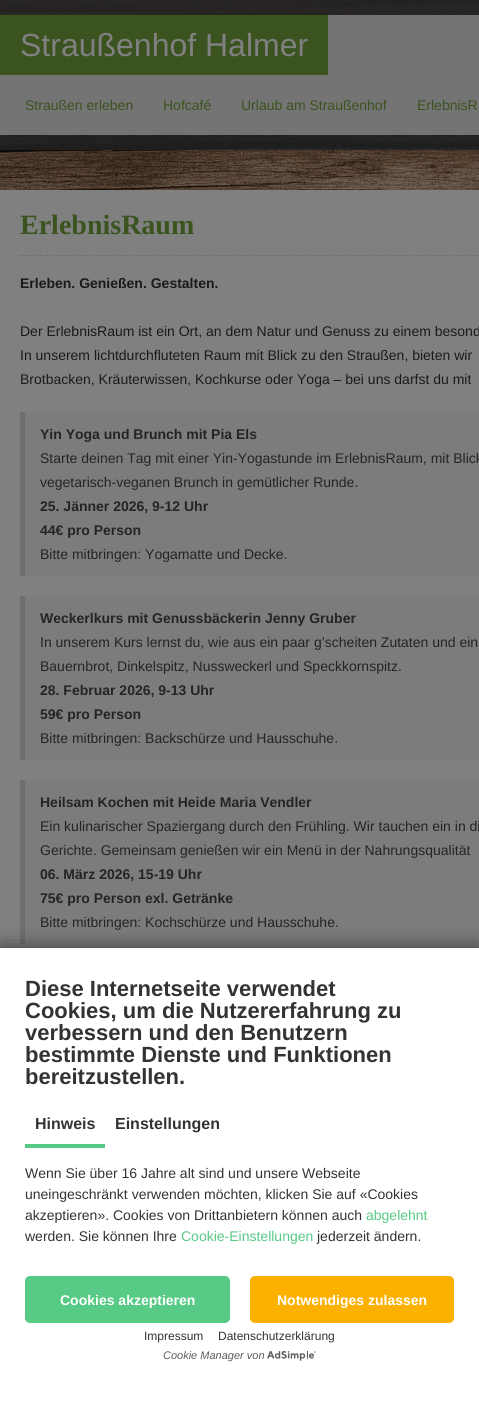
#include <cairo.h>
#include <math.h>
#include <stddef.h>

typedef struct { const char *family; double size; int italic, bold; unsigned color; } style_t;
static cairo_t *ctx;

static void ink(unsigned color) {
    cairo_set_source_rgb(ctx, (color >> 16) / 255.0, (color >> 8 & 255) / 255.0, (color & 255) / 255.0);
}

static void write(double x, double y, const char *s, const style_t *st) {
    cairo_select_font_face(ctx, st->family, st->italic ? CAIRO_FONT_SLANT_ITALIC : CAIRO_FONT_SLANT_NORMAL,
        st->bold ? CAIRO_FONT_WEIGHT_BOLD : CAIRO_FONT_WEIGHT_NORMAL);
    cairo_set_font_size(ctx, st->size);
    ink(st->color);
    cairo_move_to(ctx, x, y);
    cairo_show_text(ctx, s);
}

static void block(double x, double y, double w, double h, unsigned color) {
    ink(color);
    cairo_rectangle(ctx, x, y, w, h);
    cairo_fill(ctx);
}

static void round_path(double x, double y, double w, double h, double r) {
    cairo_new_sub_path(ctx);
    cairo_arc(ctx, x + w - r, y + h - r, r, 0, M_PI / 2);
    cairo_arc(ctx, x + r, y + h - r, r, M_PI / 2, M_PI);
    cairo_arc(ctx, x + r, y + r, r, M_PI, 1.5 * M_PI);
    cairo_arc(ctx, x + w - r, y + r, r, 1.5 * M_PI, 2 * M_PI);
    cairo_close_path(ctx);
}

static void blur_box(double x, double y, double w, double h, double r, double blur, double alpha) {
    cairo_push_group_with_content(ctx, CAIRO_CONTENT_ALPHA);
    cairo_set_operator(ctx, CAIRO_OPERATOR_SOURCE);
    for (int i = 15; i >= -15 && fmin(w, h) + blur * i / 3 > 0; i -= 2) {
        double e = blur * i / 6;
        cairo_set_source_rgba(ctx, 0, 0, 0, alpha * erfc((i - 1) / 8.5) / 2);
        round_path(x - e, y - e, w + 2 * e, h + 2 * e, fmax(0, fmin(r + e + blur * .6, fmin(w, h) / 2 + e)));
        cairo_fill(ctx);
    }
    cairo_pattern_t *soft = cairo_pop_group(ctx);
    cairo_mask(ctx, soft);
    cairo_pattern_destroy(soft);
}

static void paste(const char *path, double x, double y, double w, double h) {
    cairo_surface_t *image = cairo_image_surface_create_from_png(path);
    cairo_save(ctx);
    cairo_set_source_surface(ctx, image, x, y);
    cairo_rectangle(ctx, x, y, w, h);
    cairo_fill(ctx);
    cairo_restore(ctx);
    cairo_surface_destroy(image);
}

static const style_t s1 = {"Liberation Sans", 32, 0, 0, 0x808080};
static const style_t s2 = {"Liberation Sans", 14, 0, 0, 0x3a531f};
static const style_t s3 = {"Liberation Serif", 28, 0, 1, 0x3a531f};
static const style_t s4 = {"Liberation Sans", 14, 0, 1, 0x1a1a1a};
static const style_t s5 = {"Liberation Sans", 14, 0, 0, 0x1a1a1a};
static const style_t s6 = {"Liberation Sans", 14, 0, 1, 0x242424};
static const style_t s7 = {"Liberation Sans", 14, 0, 0, 0x242424};
static const style_t s8 = {"Liberation Sans", 22, 0, 1, 0x333333};
static const style_t s9 = {"Liberation Sans", 16, 0, 1, 0x333333};
static const style_t s10 = {"Liberation Sans", 14, 0, 0, 0x333333};
static const style_t s11 = {"Liberation Sans", 14, 0, 0, 0x57ca85};
static const style_t s12 = {"Liberation Sans", 14, 0, 1, 0xffffff};
static const style_t s13 = {"Liberation Sans", 12, 0, 0, 0x333333};
static const style_t s14 = {"Liberation Sans", 11, 1, 0, 0x5c5c5c};

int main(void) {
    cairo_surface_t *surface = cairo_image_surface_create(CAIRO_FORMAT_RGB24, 479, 1401);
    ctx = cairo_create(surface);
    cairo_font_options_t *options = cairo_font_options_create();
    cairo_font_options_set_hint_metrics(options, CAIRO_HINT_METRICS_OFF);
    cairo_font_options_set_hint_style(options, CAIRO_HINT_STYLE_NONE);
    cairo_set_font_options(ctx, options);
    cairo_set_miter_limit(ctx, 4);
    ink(0xffffff);
    cairo_paint(ctx);
    paste("pic1.png", 0, 0, 479, 190);
    cairo_set_source_rgba(ctx, 0.133, 0.133, 0.133, 0.88);
    cairo_rectangle(ctx, 0, 0, 479, 150);
    cairo_fill(ctx);
    block(0, 15, 479, 120, 0x747474);
    block(0, 15, 328, 60, 0x3a531f);
    write(20, 56, "Straußenhof Halmer", &s1);
    write(25, 110, "Straußen erleben", &s2);
    write(163, 110, "Hofcafé", &s2);
    write(241, 110, "Urlaub am Straußenhof", &s2);
    write(417, 110, "ErlebnisR", &s2);
    block(0, 190, 479, 758, 0x808080);
    cairo_new_path(ctx);
    cairo_move_to(ctx, 20, 255.5);
    cairo_line_to(ctx, 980, 255.5);
    ink(0x6f6f6f);
    cairo_set_line_width(ctx, 1);
    cairo_set_dash(ctx, (double[]){3, 2.01}, 2, 0);
    cairo_stroke(ctx);
    write(20, 234, "ErlebnisRaum", &s3);
    write(20, 288, "Erleben. Genießen. Gestalten.", &s4);
    write(20, 336, "Der ErlebnisRaum ist ein Ort, an dem Natur und Genuss zu einem besond", &s5);
    write(20, 360, "In unserem lichtdurchfluteten Raum mit Blick zu den Straußen, bieten wir", &s5);
    write(20, 384, "Brotbacken, Kräuterwissen, Kochkurse oder Yoga – bei uns darfst du mit", &s5);
    block(25, 412, 454, 164, 0x7c7c7c);
    block(20, 412, 5, 164, 0x6f6f6f);
    write(40, 439, "Yin Yoga und Brunch mit Pia Els", &s6);
    write(40, 463, "Starte deinen Tag mit einer Yin-Yogastunde im ErlebnisRaum, mit Blick", &s7);
    write(40, 487, "vegetarisch-veganen Brunch in gemütlicher Runde.", &s7);
    write(40, 511, "25. Jänner 2026, 9-12 Uhr", &s6);
    write(40, 535, "44€ pro Person", &s6);
    write(40, 559, "Bitte mitbringen: Yogamatte und Decke.", &s7);
    block(25, 596, 454, 164, 0x7c7c7c);
    block(20, 596, 5, 164, 0x6f6f6f);
    write(40, 623, "Weckerlkurs mit Genussbäckerin Jenny Gruber", &s6);
    write(40, 647, "In unserem Kurs lernst du, wie aus ein paar g’scheiten Zutaten und ein", &s7);
    write(40, 671, "Bauernbrot, Dinkelspitz, Nussweckerl und Speckkornspitz.", &s7);
    write(40, 695, "28. Februar 2026, 9-13 Uhr", &s6);
    write(40, 719, "59€ pro Person", &s6);
    write(40, 743, "Bitte mitbringen: Backschürze und Hausschuhe.", &s7);
    block(25, 780, 454, 164, 0x7c7c7c);
    block(20, 780, 5, 164, 0x6f6f6f);
    write(40, 807, "Heilsam Kochen mit Heide Maria Vendler", &s6);
    write(40, 831, "Ein kulinarischer Spaziergang durch den Frühling. Wir tauchen ein in di", &s7);
    write(40, 855, "Gerichte. Gemeinsam genießen wir ein Menü in der Nahrungsqualität", &s7);
    write(40, 879, "06. März 2026, 15-19 Uhr", &s6);
    write(40, 903, "75€ pro Person exl. Getränke", &s6);
    write(40, 927, "Bitte mitbringen: Kochschürze und Hausschuhe.", &s7);
    ink(0x000000);
    blur_box(0, 948, 479, 453, 0, 10, 0.6);
    block(0, 948, 479, 453, 0xffffff);
    write(25, 996, "Diese Internetseite verwendet", &s8);
    write(25, 1018, "Cookies, um die Nutzererfahrung zu", &s8);
    write(25, 1040, "verbessern und den Benutzern", &s8);
    write(25, 1062, "bestimmte Dienste und Funktionen", &s8);
    write(25, 1084, "bereitzustellen.", &s8);
    block(25, 1144, 80, 4, 0x57ca85);
    write(35, 1129, "Hinweis", &s9);
    write(115, 1129, "Einstellungen", &s9);
    write(25, 1178, "Wenn Sie über 16 Jahre alt sind und unsere Webseite", &s10);
    write(25, 1199, "uneingeschränkt verwenden möchten, klicken Sie auf «Cookies", &s10);
    write(25, 1220, "akzeptieren». Cookies von Drittanbietern können auch", &s10);
    write(366, 1220, "abgelehnt", &s11);
    write(25, 1241, "werden. Sie können Ihre", &s10);
    write(181, 1241, "Cookie-Einstellungen", &s11);
    write(317, 1241, "jederzeit ändern.", &s10);
    ink(0x57ca85);
    round_path(26, 1277, 203, 45, 4);
    cairo_fill_preserve(ctx);
    cairo_set_line_width(ctx, 2);
    cairo_set_dash(ctx, NULL, 0, 0);
    cairo_stroke(ctx);
    write(60, 1305, "Cookies akzeptieren", &s12);
    ink(0xfcb100);
    round_path(251, 1277, 202, 45, 4);
    cairo_fill_preserve(ctx);
    cairo_stroke(ctx);
    write(277, 1305, "Notwendiges zulassen", &s12);
    write(144, 1340, "Impressum", &s13);
    write(218, 1340, "Datenschutzerklärung", &s13);
    write(163, 1359, "Cookie Manager von", &s14);
    paste("pic2.png", 267, 1351, 49, 10);
    cairo_surface_write_to_png(surface, "screenshot.png");
    cairo_font_options_destroy(options);
    cairo_destroy(ctx);
    cairo_surface_destroy(surface);
    return 0;
}
